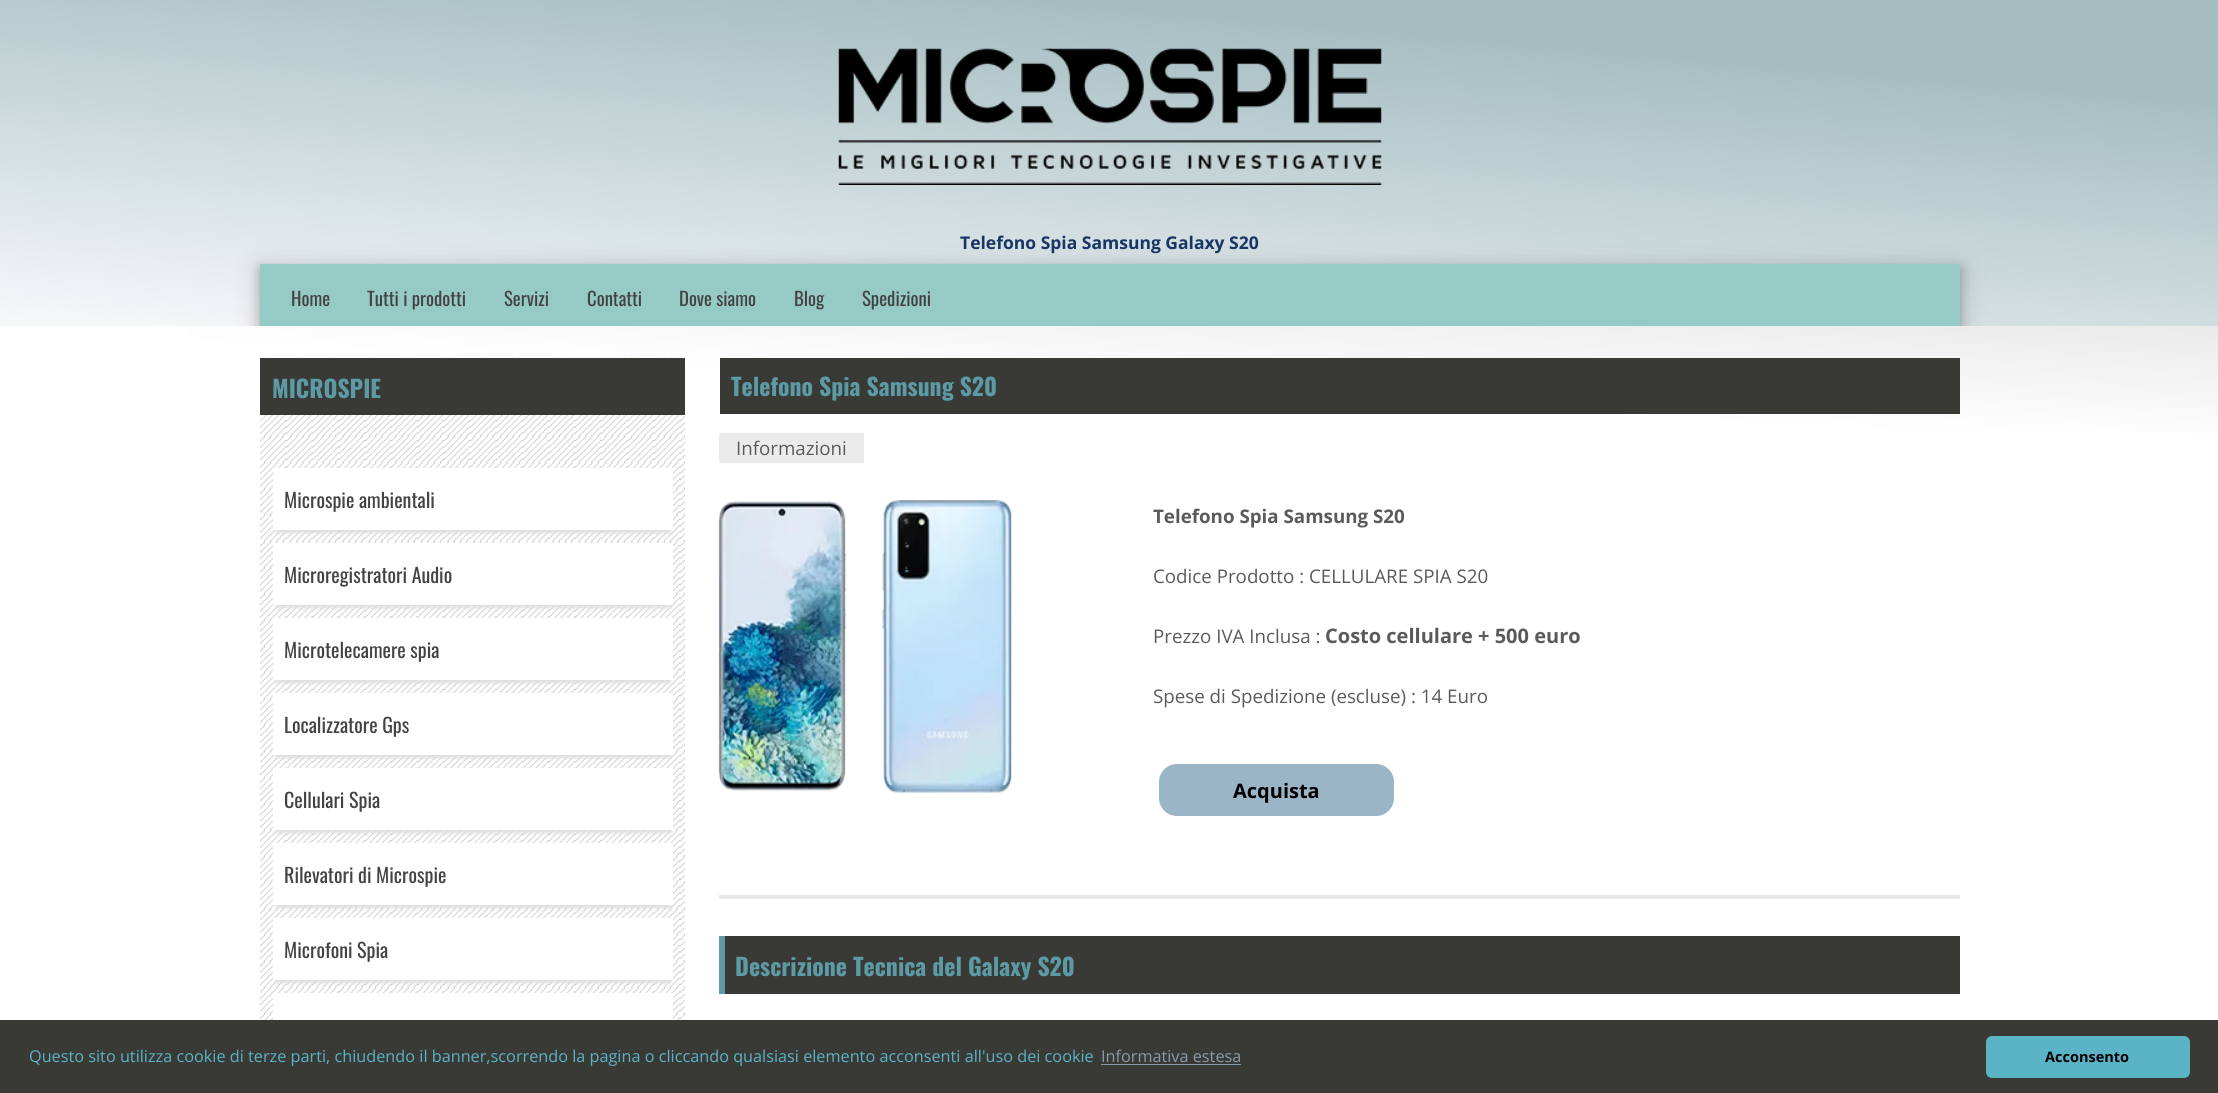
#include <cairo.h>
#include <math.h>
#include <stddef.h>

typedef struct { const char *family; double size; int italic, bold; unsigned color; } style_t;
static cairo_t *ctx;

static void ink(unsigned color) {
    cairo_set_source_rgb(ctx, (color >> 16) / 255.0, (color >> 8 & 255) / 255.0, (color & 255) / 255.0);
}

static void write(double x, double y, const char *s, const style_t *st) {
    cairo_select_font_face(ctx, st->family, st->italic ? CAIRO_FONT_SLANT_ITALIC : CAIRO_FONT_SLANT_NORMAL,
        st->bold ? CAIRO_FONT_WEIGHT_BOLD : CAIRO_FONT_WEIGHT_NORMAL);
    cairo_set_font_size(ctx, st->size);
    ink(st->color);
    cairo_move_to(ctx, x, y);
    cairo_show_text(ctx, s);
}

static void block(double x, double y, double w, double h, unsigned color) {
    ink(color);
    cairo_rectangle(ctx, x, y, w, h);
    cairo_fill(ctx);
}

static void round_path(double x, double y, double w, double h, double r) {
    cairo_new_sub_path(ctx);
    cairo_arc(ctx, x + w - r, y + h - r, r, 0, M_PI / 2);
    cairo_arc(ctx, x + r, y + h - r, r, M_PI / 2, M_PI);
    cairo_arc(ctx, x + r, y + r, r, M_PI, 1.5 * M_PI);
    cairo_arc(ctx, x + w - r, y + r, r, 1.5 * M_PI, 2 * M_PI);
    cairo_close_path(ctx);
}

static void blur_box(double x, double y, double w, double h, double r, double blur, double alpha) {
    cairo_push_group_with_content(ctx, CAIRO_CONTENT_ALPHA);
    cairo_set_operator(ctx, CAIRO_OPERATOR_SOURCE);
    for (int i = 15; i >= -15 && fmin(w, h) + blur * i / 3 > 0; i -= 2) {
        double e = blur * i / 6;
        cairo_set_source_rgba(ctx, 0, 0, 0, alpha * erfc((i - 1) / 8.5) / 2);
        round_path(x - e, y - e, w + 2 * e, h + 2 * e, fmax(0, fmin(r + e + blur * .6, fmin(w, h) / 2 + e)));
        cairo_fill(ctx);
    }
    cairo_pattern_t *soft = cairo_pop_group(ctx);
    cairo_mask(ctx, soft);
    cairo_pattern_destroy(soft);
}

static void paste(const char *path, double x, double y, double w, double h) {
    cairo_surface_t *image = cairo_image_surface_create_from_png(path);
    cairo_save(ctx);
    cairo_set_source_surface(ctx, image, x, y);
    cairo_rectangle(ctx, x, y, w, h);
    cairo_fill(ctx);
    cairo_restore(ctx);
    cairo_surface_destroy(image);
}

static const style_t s1 = {"Open Sans", 17.5, 0, 1, 0x183565};
static const style_t s2 = {"Oswald", 18.75, 0, 0, 0x434343};
static const style_t s3 = {"Oswald", 23.75, 0, 1, 0x5c9ba5};
static const style_t s4 = {"Oswald", 20, 0, 0, 0x434343};
static const style_t s5 = {"Open Sans", 18.75, 0, 0, 0x5a5a5a};
static const style_t s6 = {"Open Sans", 18.75, 0, 1, 0x5a5a5a};
static const style_t s7 = {"Open Sans", 20, 0, 1, 0x5a5a5a};
static const style_t s8 = {"Open Sans", 20, 0, 1, 0x000000};
static const style_t s9 = {"Open Sans", 16.25, 0, 0, 0x5ab4c5};
static const style_t s10 = {"Open Sans", 16.25, 0, 0, 0x879ca8};
static const style_t s11 = {"Open Sans", 14.5, 0, 1, 0x000000};

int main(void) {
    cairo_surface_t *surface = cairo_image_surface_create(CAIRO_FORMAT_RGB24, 2218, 1093);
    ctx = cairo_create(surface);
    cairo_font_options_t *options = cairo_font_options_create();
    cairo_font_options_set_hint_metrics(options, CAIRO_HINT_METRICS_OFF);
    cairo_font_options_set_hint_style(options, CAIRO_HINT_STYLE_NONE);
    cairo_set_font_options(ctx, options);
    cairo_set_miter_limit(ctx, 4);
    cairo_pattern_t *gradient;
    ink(0xffffff);
    cairo_paint(ctx);
    gradient = cairo_pattern_create_linear(1087, 421, 1132, -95);
    cairo_pattern_add_color_stop_rgba(gradient, 0, 0.969, 0.973, 0.98, 1);
    cairo_pattern_add_color_stop_rgba(gradient, 0.8, 0.651, 0.745, 0.761, 1);
    cairo_set_source(ctx, gradient);
    cairo_pattern_destroy(gradient);
    cairo_rectangle(ctx, 0, 0, 2218, 326);
    cairo_fill(ctx);
    paste("pic1.png", 838, 48, 544, 137);
    ink(0x000000);
    blur_box(260, 269, 1700, 62, 0, 12.5, 0.19);
    blur_box(260, 269, 1700, 62, 0, 6, 0.2);
    write(960, 249, "Telefono Spia Samsung Galaxy S20", &s1);
    block(260, 264, 1700, 62, 0x96cac5);
    write(291, 306, "Home", &s2);
    write(367, 306, "Tutti i prodotti", &s2);
    write(504, 306, "Servizi", &s2);
    write(587, 306, "Contatti", &s2);
    write(679, 306, "Dove siamo", &s2);
    write(794, 306, "Blog", &s2);
    write(862, 306, "Spedizioni", &s2);
    gradient = cairo_pattern_create_linear(1045, 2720, 1174, 271);
    cairo_pattern_add_color_stop_rgba(gradient, 0, 1, 1, 1, 1);
    cairo_pattern_add_color_stop_rgba(gradient, 0.95, 1, 1, 1, 1);
    cairo_pattern_add_color_stop_rgba(gradient, 0.96, 0.984, 0.984, 0.984, 1);
    cairo_pattern_add_color_stop_rgba(gradient, 1, 0.918, 0.918, 0.918, 1);
    cairo_set_source(ctx, gradient);
    cairo_pattern_destroy(gradient);
    cairo_rectangle(ctx, 189, 326, 2029, 107);
    cairo_fill(ctx);
    paste("pic2.png", 260, 357, 425, 663);
    block(260, 358, 425, 57, 0x393936);
    write(272, 398, "MICROSPIE", &s3);
    ink(0xdddddd);
    blur_box(276, 475, 395, 58, 0, 2, 1);
    block(273, 468, 400, 62, 0xffffff);
    write(284, 508, "Microspie ambientali", &s4);
    ink(0xdddddd);
    blur_box(276, 550, 395, 58, 0, 2, 1);
    block(273, 543, 400, 62, 0xffffff);
    write(284, 583, "Microregistratori Audio", &s4);
    ink(0xdddddd);
    blur_box(276, 625, 395, 58, 0, 2, 1);
    block(273, 618, 400, 62, 0xffffff);
    write(284, 658, "Microtelecamere spia", &s4);
    ink(0xdddddd);
    blur_box(276, 700, 395, 58, 0, 2, 1);
    block(273, 693, 400, 62, 0xffffff);
    write(284, 733, "Localizzatore Gps", &s4);
    ink(0xdddddd);
    blur_box(276, 775, 395, 58, 0, 2, 1);
    block(273, 768, 400, 62, 0xffffff);
    write(284, 808, "Cellulari Spia", &s4);
    ink(0xdddddd);
    blur_box(276, 850, 395, 58, 0, 2, 1);
    block(273, 843, 400, 62, 0xffffff);
    write(284, 883, "Rilevatori di Microspie", &s4);
    ink(0xdddddd);
    blur_box(276, 925, 395, 58, 0, 2, 1);
    block(273, 918, 400, 62, 0xffffff);
    write(284, 958, "Microfoni Spia", &s4);
    ink(0xdddddd);
    blur_box(276, 1000, 395, 58, 0, 2, 1);
    block(273, 993, 400, 27, 0xffffff);
    block(720, 358, 1240, 56, 0x393936);
    write(731, 396, "Telefono Spia Samsung S20", &s3);
    block(719, 895, 1241, 4, 0xe7e7e7);
    block(719, 433, 145, 30, 0xecebeb);
    write(736, 455, "Informazioni", &s5);
    paste("pic3.png", 718, 500, 294, 293);
    write(1153, 523, "Telefono Spia Samsung S20", &s6);
    write(1153, 583, "Codice Prodotto : CELLULARE SPIA S20", &s5);
    write(1153, 643, "Prezzo IVA Inclusa :", &s5);
    write(1325, 643, "Costo cellulare + 500 euro", &s7);
    write(1153, 703, "Spese di Spedizione (escluse) : 14 Euro", &s5);
    ink(0x9ab5c5);
    round_path(1159, 764, 235, 52, 18);
    cairo_fill(ctx);
    write(1233, 798, "Acquista", &s8);
    block(725, 936, 1235, 58, 0x393936);
    block(719, 936, 6, 58, 0x5c9ba5);
    write(735, 976, "Descrizione Tecnica del Galaxy S20", &s3);
    block(0, 1020, 2218, 73, 0x393936);
    write(29, 1062, "Questo sito utilizza cookie di terze parti, chiudendo il banner,scorrendo la pagina o cliccando qualsiasi elemento acconsenti all'uso dei cookie", &s9);
    write(1101, 1062, "Informativa estesa", &s10);
    block(1101, 1064, 140, 1, 0x879ca8);
    ink(0x5ab4c5);
    round_path(1986, 1036, 204, 42, 6);
    cairo_fill(ctx);
    write(2045, 1062, "Acconsento", &s11);
    cairo_surface_write_to_png(surface, "screenshot.png");
    cairo_font_options_destroy(options);
    cairo_destroy(ctx);
    cairo_surface_destroy(surface);
    return 0;
}
